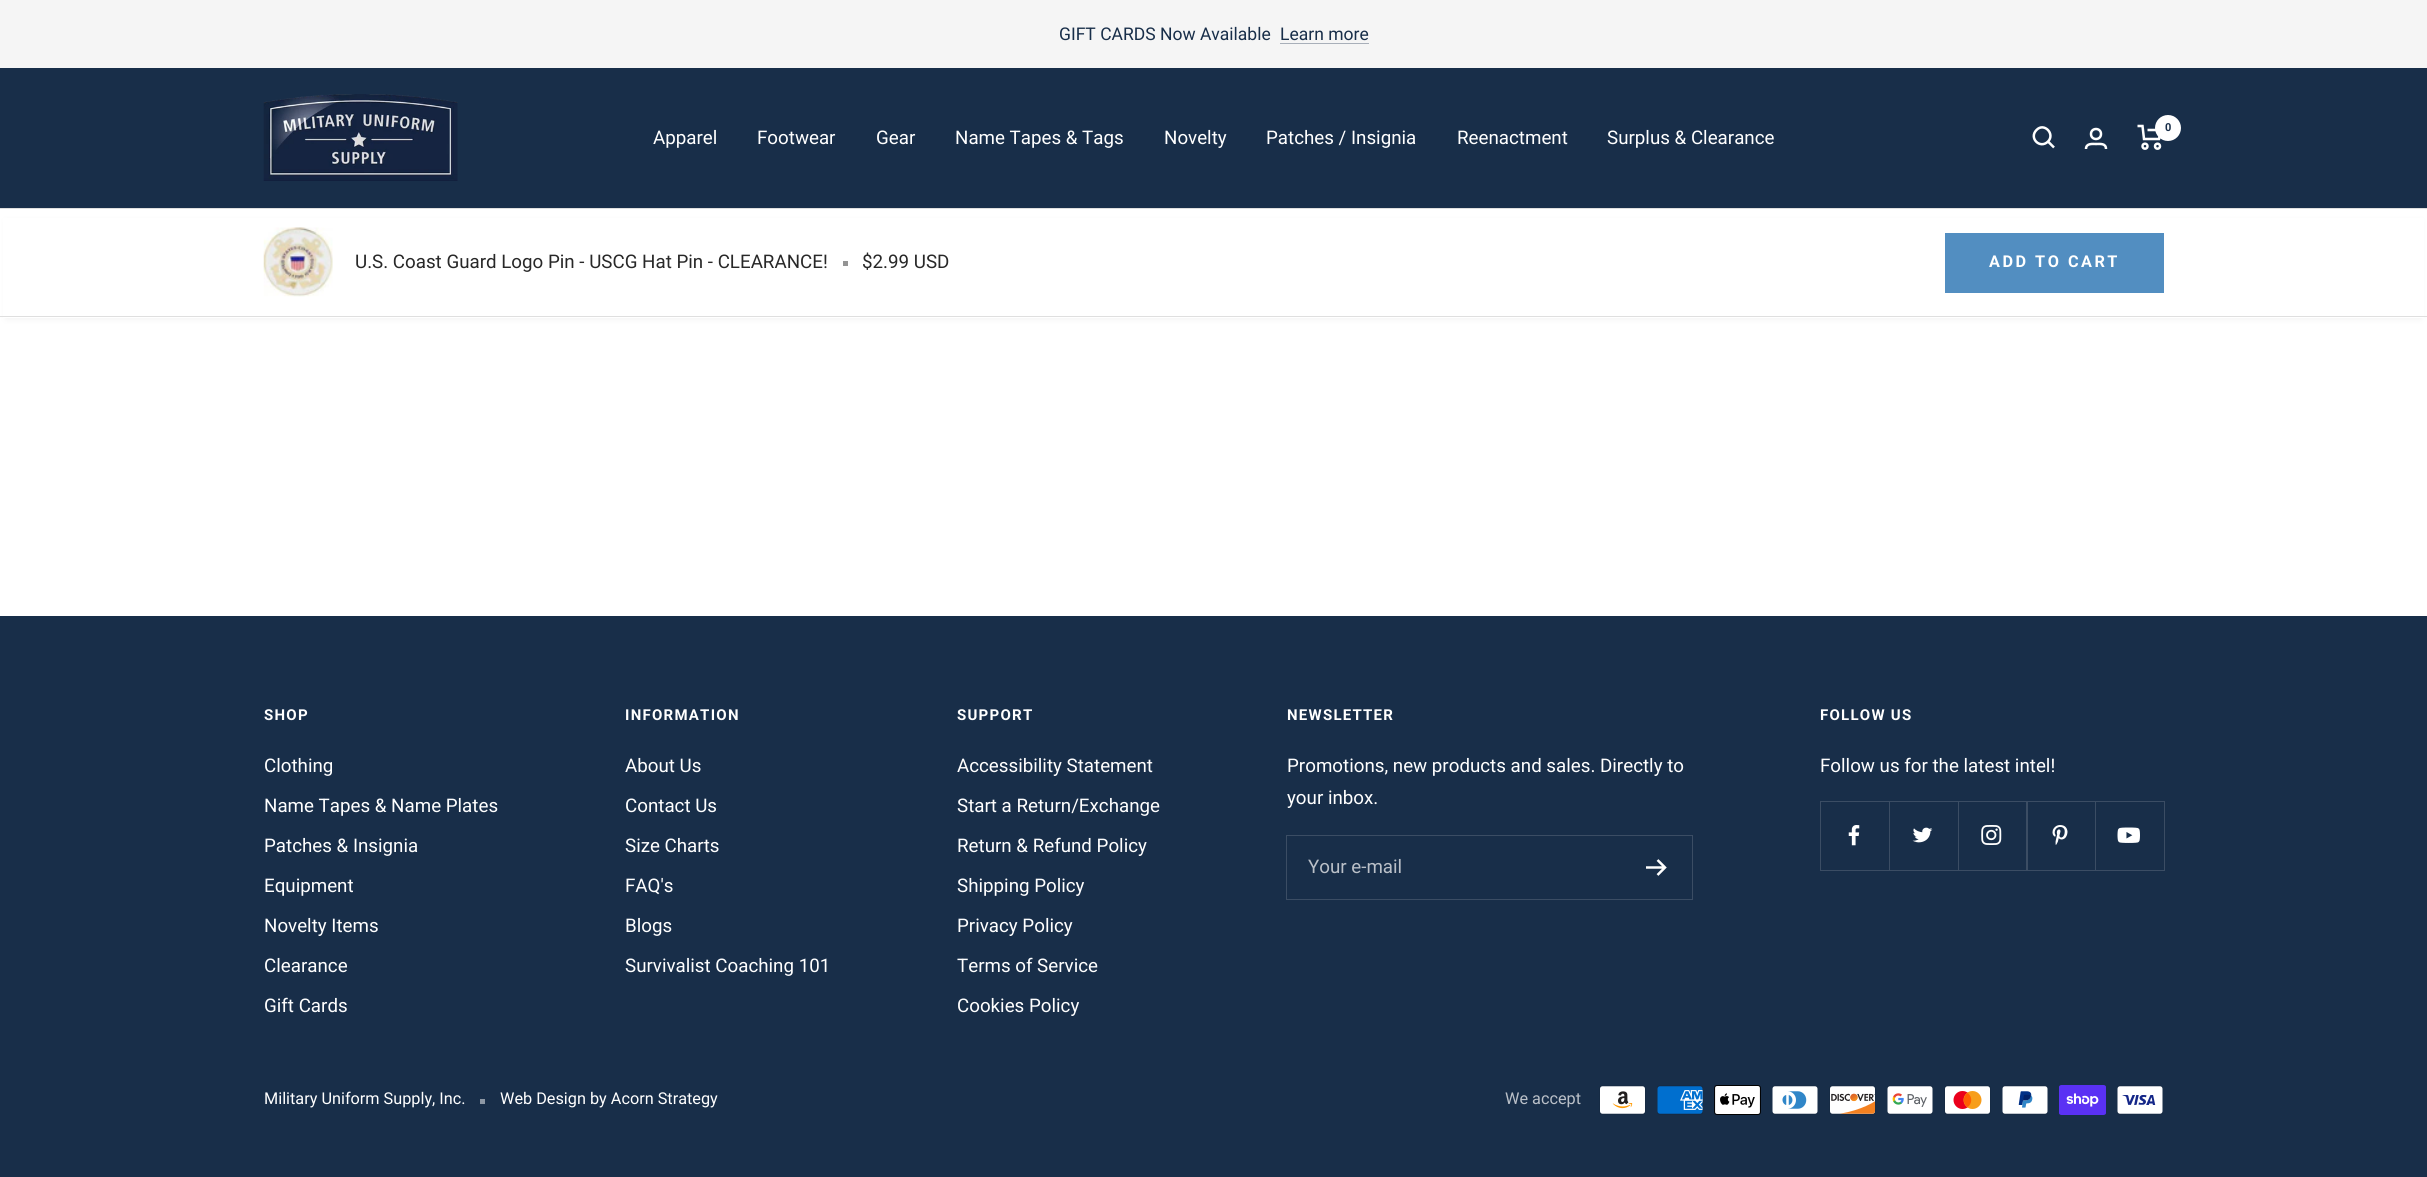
#include <cairo.h>
#include <math.h>
#include <stddef.h>

typedef struct { const char *family; double size; int italic, bold; unsigned color; } style_t;
static cairo_t *ctx;

static void ink(unsigned color) {
    cairo_set_source_rgb(ctx, (color >> 16) / 255.0, (color >> 8 & 255) / 255.0, (color & 255) / 255.0);
}

static void write(double x, double y, const char *s, const style_t *st) {
    cairo_select_font_face(ctx, st->family, st->italic ? CAIRO_FONT_SLANT_ITALIC : CAIRO_FONT_SLANT_NORMAL,
        st->bold ? CAIRO_FONT_WEIGHT_BOLD : CAIRO_FONT_WEIGHT_NORMAL);
    cairo_set_font_size(ctx, st->size);
    ink(st->color);
    cairo_move_to(ctx, x, y);
    cairo_show_text(ctx, s);
}

static void write_spaced(double x, double y, const char *s, double letter, double word) {
    cairo_move_to(ctx, x, y);
    while (*s) {
        char ch[5] = {0};
        int n = 0;
        do ch[n++] = *s++; while ((*s & 0xC0) == 0x80);
        cairo_show_text(ctx, ch);
        cairo_rel_move_to(ctx, letter + word * (*ch == ' '), 0);
    }
}

static void block(double x, double y, double w, double h, unsigned color) {
    ink(color);
    cairo_rectangle(ctx, x, y, w, h);
    cairo_fill(ctx);
}

static void round_path(double x, double y, double w, double h, double r) {
    cairo_new_sub_path(ctx);
    cairo_arc(ctx, x + w - r, y + h - r, r, 0, M_PI / 2);
    cairo_arc(ctx, x + r, y + h - r, r, M_PI / 2, M_PI);
    cairo_arc(ctx, x + r, y + r, r, M_PI, 1.5 * M_PI);
    cairo_arc(ctx, x + w - r, y + r, r, 1.5 * M_PI, 2 * M_PI);
    cairo_close_path(ctx);
}

static void blur_box(double x, double y, double w, double h, double r, double blur, double alpha) {
    cairo_push_group_with_content(ctx, CAIRO_CONTENT_ALPHA);
    cairo_set_operator(ctx, CAIRO_OPERATOR_SOURCE);
    for (int i = 15; i >= -15 && fmin(w, h) + blur * i / 3 > 0; i -= 2) {
        double e = blur * i / 6;
        cairo_set_source_rgba(ctx, 0, 0, 0, alpha * erfc((i - 1) / 8.5) / 2);
        round_path(x - e, y - e, w + 2 * e, h + 2 * e, fmax(0, fmin(r + e + blur * .6, fmin(w, h) / 2 + e)));
        cairo_fill(ctx);
    }
    cairo_pattern_t *soft = cairo_pop_group(ctx);
    cairo_mask(ctx, soft);
    cairo_pattern_destroy(soft);
}

static void paste(const char *path, double x, double y, double w, double h) {
    cairo_surface_t *image = cairo_image_surface_create_from_png(path);
    cairo_save(ctx);
    cairo_set_source_surface(ctx, image, x, y);
    cairo_rectangle(ctx, x, y, w, h);
    cairo_fill(ctx);
    cairo_restore(ctx);
    cairo_surface_destroy(image);
}

static const style_t s1 = {"Roboto", 17.5, 0, 0, 0x182e49};
static const style_t s2 = {"Roboto", 11, 0, 1, 0x182e49};
static const style_t s3 = {"Roboto", 18.75, 0, 0, 0xffffff};
static const style_t s4 = {"Roboto", 18.75, 0, 0, 0x282828};
static const style_t s5 = {"Roboto", 18.75, 0, 0, 0xbac0c8};
static const style_t s6 = {"Roboto", 16.25, 0, 0, 0xffffff};
static const style_t s7 = {"Roboto", 16.25, 0, 0, 0xbac0c8};

int main(void) {
    cairo_surface_t *surface = cairo_image_surface_create(CAIRO_FORMAT_RGB24, 2427, 1177);
    ctx = cairo_create(surface);
    cairo_font_options_t *options = cairo_font_options_create();
    cairo_font_options_set_hint_metrics(options, CAIRO_HINT_METRICS_OFF);
    cairo_font_options_set_hint_style(options, CAIRO_HINT_STYLE_NONE);
    cairo_set_font_options(ctx, options);
    cairo_set_miter_limit(ctx, 4);
    ink(0xffffff);
    cairo_paint(ctx);
    block(0, 0, 2427, 68, 0xf5f5f5);
    write(1059, 40, "GIFT CARDS Now Available", &s1);
    write(1280, 40, "Learn more", &s1);
    block(1280, 43, 89, 1, 0xa8afb9);
    block(0, 68, 2427, 140, 0x182e49);
    paste("pic1.png", 263, 94, 195, 87);
    cairo_new_path(ctx);
    cairo_move_to(ctx, 2048, 141.5);
    cairo_curve_to(ctx, 2055.5, 134, 2044, 122, 2036.5, 130);
    cairo_curve_to(ctx, 2028.5, 138, 2040, 149.5, 2048, 141.5);
    cairo_close_path(ctx);
    cairo_move_to(ctx, 2048, 141.5);
    cairo_line_to(ctx, 2054, 147.5);
    ink(0xffffff);
    cairo_set_line_width(ctx, 2.5);
    cairo_stroke(ctx);
    cairo_arc(ctx, 2096, 134, 5, 0, 2 * M_PI);
    cairo_stroke(ctx);
    cairo_new_path(ctx);
    cairo_move_to(ctx, 2086, 149);
    cairo_curve_to(ctx, 2086, 143, 2092.5, 144, 2096, 144);
    cairo_curve_to(ctx, 2100, 144, 2106, 143, 2106, 149);
    cairo_stroke(ctx);
    cairo_new_path(ctx);
    cairo_move_to(ctx, 2137.5, 126);
    cairo_line_to(ctx, 2142.5, 126);
    cairo_line_to(ctx, 2144, 139);
    cairo_line_to(ctx, 2159, 139);
    cairo_line_to(ctx, 2161, 130);
    cairo_line_to(ctx, 2147.5, 130);
    cairo_stroke(ctx);
    cairo_arc(ctx, 2145, 146.2, 2.5, 0, 2 * M_PI);
    cairo_stroke(ctx);
    cairo_arc(ctx, 2157.5, 146.2, 2.5, 0, 2 * M_PI);
    cairo_stroke(ctx);
    cairo_arc(ctx, 2168, 128, 13, 0, 2 * M_PI);
    cairo_fill(ctx);
    write(2165, 131, "0", &s2);
    write(653, 144, "Apparel", &s3);
    write(757, 144, "Footwear", &s3);
    write(876, 144, "Gear", &s3);
    write(955, 144, "Name Tapes & Tags", &s3);
    write(1164, 144, "Novelty", &s3);
    write(1266, 144, "Patches / Insignia", &s3);
    write(1457, 144, "Reenactment", &s3);
    write(1607, 144, "Surplus & Clearance", &s3);
    ink(0xdfdfdf);
    blur_box(6, 221, 2415, 98, 0, 3, 0.4);
    block(3, 218, 2421, 100, 0xffffff);
    block(0, 208, 2427, 1, 0xdfdfdf);
    block(0, 316, 2427, 1, 0xdfdfdf);
    paste("pic2.png", 263, 227, 70, 70);
    write(355, 268, "U.S. Coast Guard Logo Pin - USCG Hat Pin - CLEARANCE!", &s4);
    block(843, 261, 5, 5, 0x949494);
    write(862, 268, "$2.99 USD", &s4);
    block(1945, 233, 219, 60, 0x528ec1);
    cairo_select_font_face(ctx, "Roboto", CAIRO_FONT_SLANT_NORMAL, CAIRO_FONT_WEIGHT_BOLD);
    cairo_set_font_size(ctx, 16.25);
    ink(0xffffff);
    write_spaced(1989, 267, "ADD TO CART", 2.5, 0);
    block(0, 616, 2427, 561, 0x182e49);
    cairo_set_font_size(ctx, 15);
    ink(0xffffff);
    write_spaced(264, 720, "SHOP", 1.25, 0);
    write(264, 772, "Clothing", &s3);
    write(264, 812, "Name Tapes & Name Plates", &s3);
    write(264, 852, "Patches & Insignia", &s3);
    write(264, 892, "Equipment", &s3);
    write(264, 932, "Novelty Items", &s3);
    write(264, 972, "Clearance", &s3);
    write(264, 1012, "Gift Cards", &s3);
    cairo_select_font_face(ctx, "Roboto", CAIRO_FONT_SLANT_NORMAL, CAIRO_FONT_WEIGHT_BOLD);
    cairo_set_font_size(ctx, 15);
    write_spaced(625, 720, "INFORMATION", 1.25, 0);
    write(625, 772, "About Us", &s3);
    write(625, 812, "Contact Us", &s3);
    write(625, 852, "Size Charts", &s3);
    write(625, 892, "FAQ's", &s3);
    write(625, 932, "Blogs", &s3);
    write(625, 972, "Survivalist Coaching 101", &s3);
    cairo_select_font_face(ctx, "Roboto", CAIRO_FONT_SLANT_NORMAL, CAIRO_FONT_WEIGHT_BOLD);
    cairo_set_font_size(ctx, 15);
    write_spaced(957, 720, "SUPPORT", 1.25, 0);
    write(957, 772, "Accessibility Statement", &s3);
    write(957, 812, "Start a Return/Exchange", &s3);
    write(957, 852, "Return & Refund Policy", &s3);
    write(957, 892, "Shipping Policy", &s3);
    write(957, 932, "Privacy Policy", &s3);
    write(957, 972, "Terms of Service", &s3);
    write(957, 1012, "Cookies Policy", &s3);
    cairo_select_font_face(ctx, "Roboto", CAIRO_FONT_SLANT_NORMAL, CAIRO_FONT_WEIGHT_BOLD);
    cairo_set_font_size(ctx, 15);
    write_spaced(1287, 720, "NEWSLETTER", 1.25, 0);
    write(1287, 772, "Promotions, new products and sales. Directly to", &s3);
    write(1287, 804, "your inbox.", &s3);
    cairo_rectangle(ctx, 1286.5, 835.5, 406, 64);
    ink(0x3b4d64);
    cairo_set_line_width(ctx, 1);
    cairo_stroke(ctx);
    write(1308, 873, "Your e-mail", &s5);
    cairo_new_path(ctx);
    cairo_move_to(ctx, 1646, 867.5);
    cairo_line_to(ctx, 1665, 867.5);
    cairo_move_to(ctx, 1657.5, 860);
    cairo_line_to(ctx, 1665, 867.5);
    cairo_line_to(ctx, 1657.5, 875);
    ink(0xffffff);
    cairo_set_line_width(ctx, 2.5);
    cairo_stroke(ctx);
    cairo_select_font_face(ctx, "Roboto", CAIRO_FONT_SLANT_NORMAL, CAIRO_FONT_WEIGHT_BOLD);
    cairo_set_font_size(ctx, 15);
    write_spaced(1820, 720, "FOLLOW US", 1.25, 0);
    write(1820, 772, "Follow us for the latest intel!", &s3);
    ink(0x3b4d64);
    cairo_new_path(ctx);
    cairo_move_to(ctx, 1821, 870);
    cairo_line_to(ctx, 1821, 871);
    cairo_line_to(ctx, 1890, 871);
    cairo_line_to(ctx, 1890, 803);
    cairo_line_to(ctx, 1889, 803);
    cairo_line_to(ctx, 1889, 870);
    cairo_close_path(ctx);
    cairo_fill(ctx);
    cairo_new_path(ctx);
    cairo_move_to(ctx, 1820, 870);
    cairo_line_to(ctx, 1820, 871);
    cairo_line_to(ctx, 1889, 871);
    cairo_line_to(ctx, 1889, 803);
    cairo_line_to(ctx, 1889, 870);
    cairo_close_path(ctx);
    cairo_fill(ctx);
    cairo_new_path(ctx);
    cairo_move_to(ctx, 1821, 801);
    cairo_line_to(ctx, 1889, 801);
    cairo_line_to(ctx, 1889, 870);
    cairo_line_to(ctx, 1890, 870);
    cairo_line_to(ctx, 1890, 801);
    cairo_close_path(ctx);
    cairo_fill(ctx);
    block(1820, 801, 138, 1, 0x3b4d64);
    block(1820, 801, 1, 69, 0x3b4d64);
    paste("pic3.png", 1848, 825, 12, 21);
    cairo_new_path(ctx);
    cairo_move_to(ctx, 1890, 870);
    cairo_line_to(ctx, 1890, 871);
    cairo_line_to(ctx, 1959, 871);
    cairo_line_to(ctx, 1959, 803);
    cairo_line_to(ctx, 1958, 803);
    cairo_line_to(ctx, 1958, 870);
    cairo_close_path(ctx);
    cairo_fill(ctx);
    cairo_new_path(ctx);
    cairo_move_to(ctx, 1890, 801);
    cairo_line_to(ctx, 1958, 801);
    cairo_line_to(ctx, 1958, 870);
    cairo_line_to(ctx, 1959, 870);
    cairo_line_to(ctx, 1959, 801);
    cairo_close_path(ctx);
    cairo_fill(ctx);
    paste("pic4.png", 1912, 827, 21, 16);
    cairo_new_path(ctx);
    cairo_move_to(ctx, 1959, 870);
    cairo_line_to(ctx, 1959, 871);
    cairo_line_to(ctx, 2028, 871);
    cairo_line_to(ctx, 2028, 803);
    cairo_line_to(ctx, 2026, 803);
    cairo_line_to(ctx, 2026, 870);
    cairo_close_path(ctx);
    cairo_fill(ctx);
    cairo_new_path(ctx);
    cairo_move_to(ctx, 1959, 801);
    cairo_line_to(ctx, 2026, 801);
    cairo_line_to(ctx, 2026, 870);
    cairo_line_to(ctx, 2028, 870);
    cairo_line_to(ctx, 2028, 801);
    cairo_close_path(ctx);
    cairo_fill(ctx);
    block(1958, 801, 137, 1, 0x3b4d64);
    paste("pic5.png", 1981, 825, 21, 20);
    cairo_new_path(ctx);
    cairo_move_to(ctx, 2028, 870);
    cairo_line_to(ctx, 2028, 871);
    cairo_line_to(ctx, 2096, 871);
    cairo_line_to(ctx, 2096, 803);
    cairo_line_to(ctx, 2095, 803);
    cairo_line_to(ctx, 2095, 870);
    cairo_close_path(ctx);
    cairo_fill(ctx);
    cairo_new_path(ctx);
    cairo_move_to(ctx, 2028, 801);
    cairo_line_to(ctx, 2095, 801);
    cairo_line_to(ctx, 2095, 870);
    cairo_line_to(ctx, 2096, 870);
    cairo_line_to(ctx, 2096, 801);
    cairo_close_path(ctx);
    cairo_fill(ctx);
    paste("pic6.png", 2052, 825, 16, 20);
    cairo_new_path(ctx);
    cairo_move_to(ctx, 2096, 870);
    cairo_line_to(ctx, 2096, 871);
    cairo_line_to(ctx, 2165, 871);
    cairo_line_to(ctx, 2165, 803);
    cairo_line_to(ctx, 2164, 803);
    cairo_line_to(ctx, 2164, 870);
    cairo_close_path(ctx);
    cairo_fill(ctx);
    cairo_new_path(ctx);
    cairo_move_to(ctx, 2096, 801);
    cairo_line_to(ctx, 2164, 801);
    cairo_line_to(ctx, 2164, 870);
    cairo_line_to(ctx, 2165, 870);
    cairo_line_to(ctx, 2165, 801);
    cairo_close_path(ctx);
    cairo_fill(ctx);
    block(2095, 801, 69, 1, 0x3b4d64);
    paste("pic7.png", 2117, 827, 23, 16);
    write(264, 1104, "Military Uniform Supply, Inc.", &s6);
    block(480, 1099, 5, 5, 0x8c97a4);
    write(500, 1104, "Web Design by Acorn Strategy", &s6);
    write(1505, 1104, "We accept", &s7);
    paste("pic8.png", 1599, 1085, 47, 30);
    paste("pic9.png", 1657, 1085, 46, 30);
    paste("pic10.png", 1714, 1085, 47, 30);
    paste("pic11.png", 1772, 1085, 46, 30);
    paste("pic12.png", 1829, 1085, 47, 30);
    paste("pic13.png", 1887, 1085, 46, 30);
    paste("pic14.png", 1944, 1085, 47, 30);
    paste("pic15.png", 2002, 1085, 46, 30);
    paste("pic16.png", 2059, 1085, 47, 30);
    paste("pic17.png", 2117, 1085, 46, 30);
    cairo_surface_write_to_png(surface, "screenshot.png");
    cairo_font_options_destroy(options);
    cairo_destroy(ctx);
    cairo_surface_destroy(surface);
    return 0;
}
